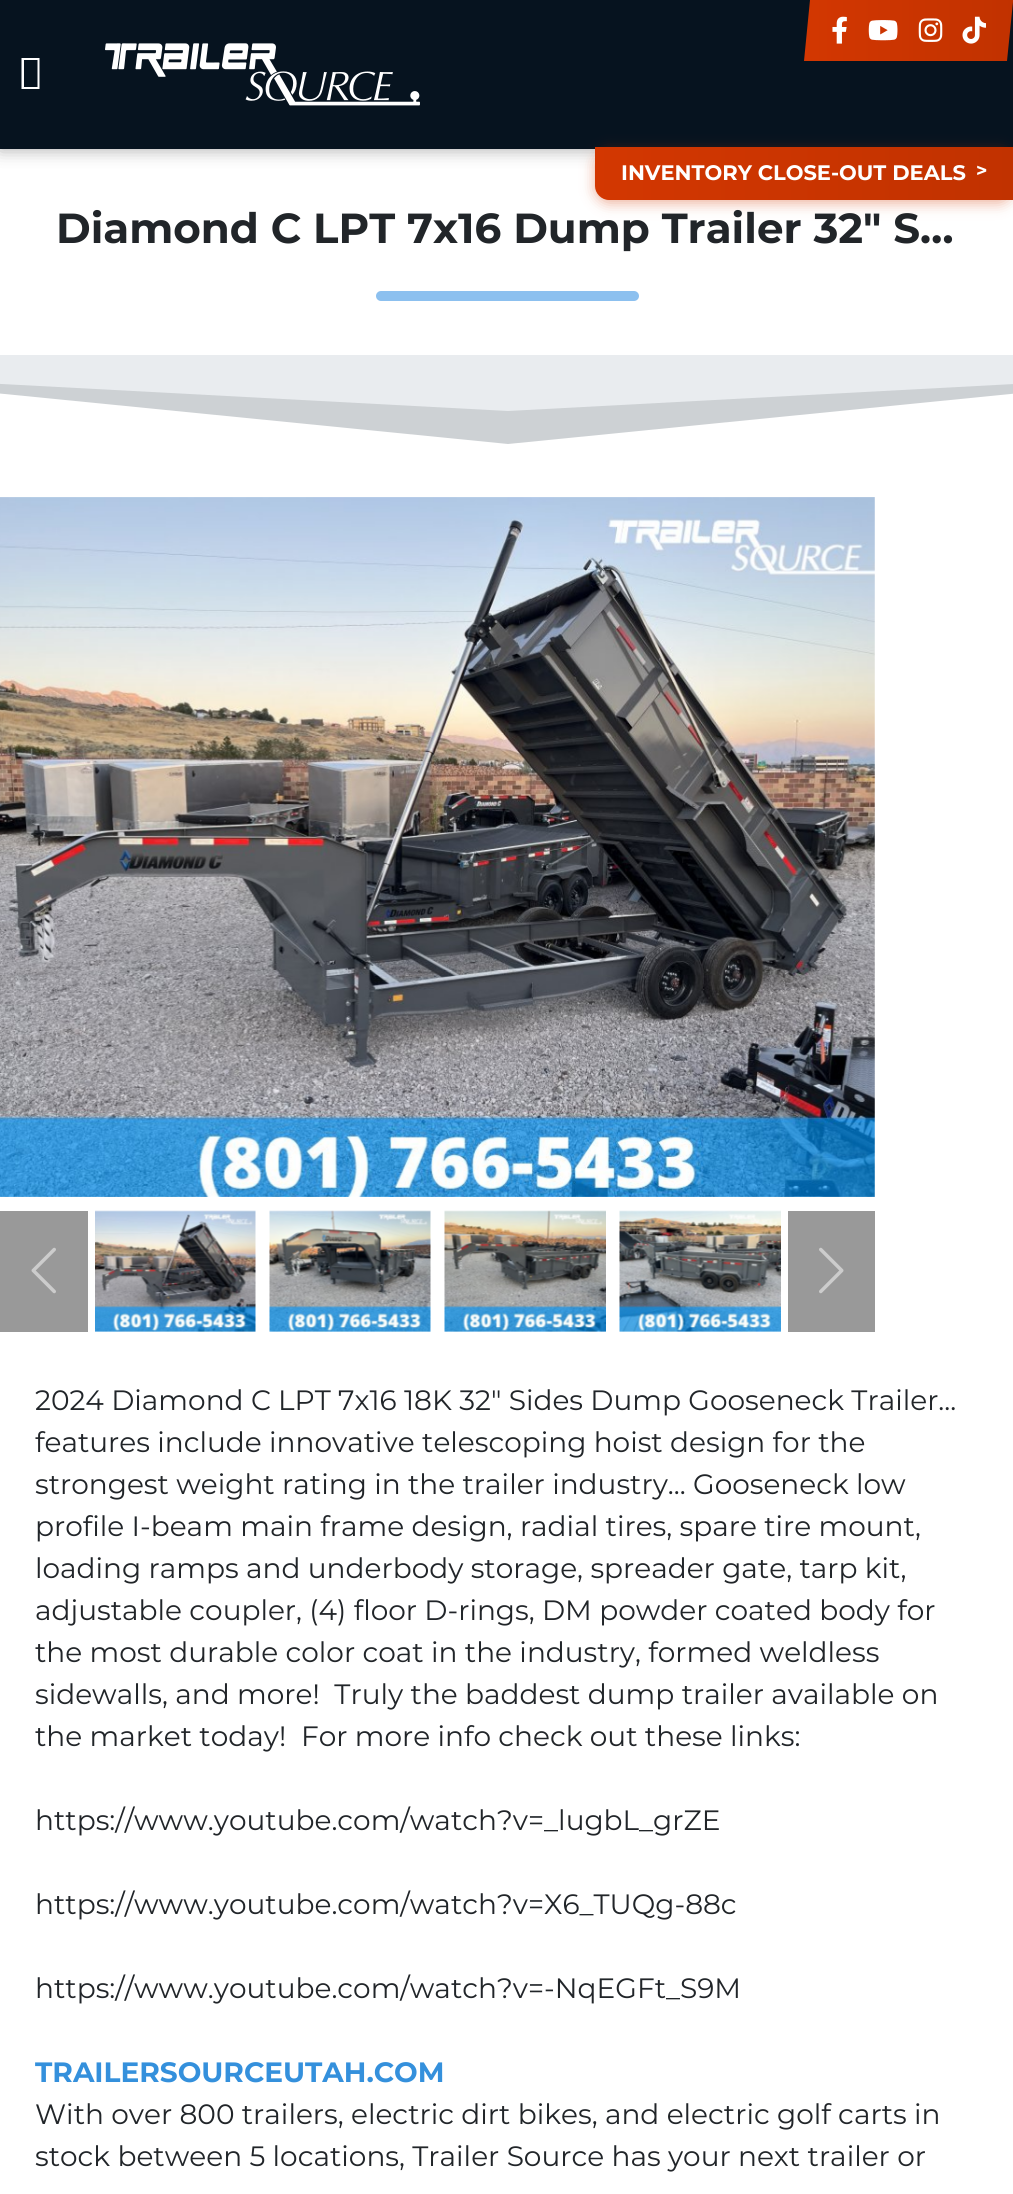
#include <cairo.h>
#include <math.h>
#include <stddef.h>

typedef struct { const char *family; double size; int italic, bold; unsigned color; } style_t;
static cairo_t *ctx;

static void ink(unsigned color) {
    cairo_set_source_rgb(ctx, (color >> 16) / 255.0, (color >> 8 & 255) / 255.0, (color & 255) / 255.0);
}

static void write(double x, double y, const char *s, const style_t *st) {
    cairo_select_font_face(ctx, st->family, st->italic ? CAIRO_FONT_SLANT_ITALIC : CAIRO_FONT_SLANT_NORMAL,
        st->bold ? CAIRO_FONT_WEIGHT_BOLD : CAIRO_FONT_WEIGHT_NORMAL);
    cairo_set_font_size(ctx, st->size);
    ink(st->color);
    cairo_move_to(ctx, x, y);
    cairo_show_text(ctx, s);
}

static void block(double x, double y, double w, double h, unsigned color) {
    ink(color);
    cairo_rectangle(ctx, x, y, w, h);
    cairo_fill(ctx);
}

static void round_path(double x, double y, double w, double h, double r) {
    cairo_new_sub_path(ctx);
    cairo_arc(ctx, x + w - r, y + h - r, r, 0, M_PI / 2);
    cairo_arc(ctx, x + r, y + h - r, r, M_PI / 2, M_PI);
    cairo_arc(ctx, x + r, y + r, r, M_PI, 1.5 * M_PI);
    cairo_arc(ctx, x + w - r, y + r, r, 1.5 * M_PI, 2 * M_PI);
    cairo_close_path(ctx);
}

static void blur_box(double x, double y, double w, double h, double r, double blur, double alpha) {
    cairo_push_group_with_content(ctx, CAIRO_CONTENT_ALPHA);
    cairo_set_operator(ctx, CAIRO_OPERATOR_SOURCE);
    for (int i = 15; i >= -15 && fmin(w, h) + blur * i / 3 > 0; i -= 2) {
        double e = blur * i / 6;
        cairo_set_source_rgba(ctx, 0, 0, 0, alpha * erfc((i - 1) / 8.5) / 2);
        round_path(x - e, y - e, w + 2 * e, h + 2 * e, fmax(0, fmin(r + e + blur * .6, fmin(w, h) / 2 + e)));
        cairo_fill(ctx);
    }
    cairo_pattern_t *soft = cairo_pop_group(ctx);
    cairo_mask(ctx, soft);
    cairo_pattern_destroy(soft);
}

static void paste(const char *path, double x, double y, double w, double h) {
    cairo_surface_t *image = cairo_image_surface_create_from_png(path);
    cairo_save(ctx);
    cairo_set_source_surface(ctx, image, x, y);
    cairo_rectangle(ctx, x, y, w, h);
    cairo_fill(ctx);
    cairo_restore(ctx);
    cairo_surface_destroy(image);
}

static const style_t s1 = {"Montserrat", 21, 0, 1, 0xffffff};
static const style_t s2 = {"Montserrat", 19, 0, 1, 0xffffff};
static const style_t s3 = {"Montserrat", 42, 0, 1, 0x212529};
static const style_t s4 = {"Montserrat", 28, 0, 0, 0x212529};
static const style_t s5 = {"Montserrat", 28, 0, 1, 0x3490dc};

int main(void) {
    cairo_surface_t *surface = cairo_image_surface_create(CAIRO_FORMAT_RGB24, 1013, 2194);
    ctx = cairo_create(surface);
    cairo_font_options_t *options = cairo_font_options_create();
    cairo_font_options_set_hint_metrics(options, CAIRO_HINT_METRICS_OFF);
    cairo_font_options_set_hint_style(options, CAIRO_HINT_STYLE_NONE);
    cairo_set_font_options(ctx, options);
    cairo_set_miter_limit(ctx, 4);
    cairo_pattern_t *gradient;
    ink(0xffffff);
    cairo_paint(ctx);
    ink(0x000000);
    blur_box(0, 0, 1013, 149, 0, 9, 0.35);
    block(0, 0, 1013, 149, 0x06131f);
    gradient = cairo_pattern_create_linear(803, 31, 1013, 31);
    cairo_pattern_add_color_stop_rgba(gradient, 0, 0.827, 0.216, 0.004, 1);
    cairo_pattern_add_color_stop_rgba(gradient, 1, 0.757, 0.196, 0, 1);
    cairo_set_source(ctx, gradient);
    cairo_pattern_destroy(gradient);
    cairo_new_path(ctx);
    cairo_move_to(ctx, 810, 0);
    cairo_line_to(ctx, 1013, 0);
    cairo_line_to(ctx, 1013, 2);
    cairo_line_to(ctx, 1007, 61);
    cairo_line_to(ctx, 804, 61);
    cairo_close_path(ctx);
    cairo_fill(ctx);
    paste("pic1.png", 832, 16, 15, 28);
    paste("pic2.png", 868, 20, 30, 21);
    paste("pic3.png", 918, 18, 25, 24);
    paste("pic4.png", 962, 16, 24, 28);
    ink(0xffffff);
    cairo_new_path(ctx);
    cairo_move_to(ctx, 21.5, 89);
    cairo_line_to(ctx, 21.5, 58);
    cairo_line_to(ctx, 39.5, 58);
    cairo_line_to(ctx, 39.5, 89);
    cairo_close_path(ctx);
    cairo_move_to(ctx, 24, 87);
    cairo_line_to(ctx, 37.5, 87);
    cairo_line_to(ctx, 37.5, 60);
    cairo_line_to(ctx, 24, 60);
    cairo_close_path(ctx);
    cairo_fill(ctx);
    paste("pic5.png", 105, 43, 315, 63);
    ink(0xd33701);
    blur_box(595, 151, 418, 52, 14, 7, 0.4);
    gradient = cairo_pattern_create_linear(595, 173, 1013, 173);
    cairo_pattern_add_color_stop_rgba(gradient, 0, 0.827, 0.216, 0.004, 1);
    cairo_pattern_add_color_stop_rgba(gradient, 1, 0.757, 0.196, 0, 1);
    cairo_set_source(ctx, gradient);
    cairo_pattern_destroy(gradient);
    cairo_new_path(ctx);
    cairo_move_to(ctx, 595, 147);
    cairo_line_to(ctx, 1013, 147);
    cairo_line_to(ctx, 1013, 200);
    cairo_line_to(ctx, 609, 200);
    cairo_curve_to(ctx, 601.5, 200, 595, 193.5, 595, 186);
    cairo_close_path(ctx);
    cairo_fill(ctx);
    write(621, 180, "INVENTORY CLOSE-OUT DEALS", &s1);
    write(976, 177, ">", &s2);
    write(56, 243, "Diamond C LPT 7x16 Dump Trailer 32\" S…", &s3);
    ink(0x8cc0ef);
    round_path(376, 291, 263, 10, 5);
    cairo_fill(ctx);
    ink(0xcdd1d4);
    cairo_new_path(ctx);
    cairo_move_to(ctx, -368, 357);
    cairo_line_to(ctx, 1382, 357);
    cairo_line_to(ctx, 508, 444);
    cairo_close_path(ctx);
    cairo_fill(ctx);
    ink(0xe9ecef);
    cairo_new_path(ctx);
    cairo_move_to(ctx, -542, 355);
    cairo_line_to(ctx, 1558, 355);
    cairo_line_to(ctx, 508, 411);
    cairo_close_path(ctx);
    cairo_fill(ctx);
    paste("pic6.png", 0, 497, 875, 700);
    block(0, 1211, 88, 121, 0x999999);
    paste("pic7.png", 31, 1247, 25, 47);
    paste("pic8.png", 95, 1210, 161, 122);
    paste("pic9.png", 269, 1210, 162, 122);
    paste("pic10.png", 444, 1210, 162, 122);
    paste("pic11.png", 619, 1210, 162, 122);
    block(788, 1211, 87, 121, 0x999999);
    paste("pic12.png", 819, 1247, 25, 47);
    write(35, 1410, "2024 Diamond C LPT 7x16 18K 32\" Sides Dump Gooseneck Trailer...", &s4);
    write(35, 1452, "features include innovative telescoping hoist design for the", &s4);
    write(35, 1494, "strongest weight rating in the trailer industry... Gooseneck low", &s4);
    write(35, 1536, "profile I-beam main frame design, radial tires, spare tire mount,", &s4);
    write(35, 1578, "loading ramps and underbody storage, spreader gate, tarp kit,", &s4);
    write(35, 1620, "adjustable coupler, (4) floor D-rings, DM powder coated body for", &s4);
    write(35, 1662, "the most durable color coat in the industry, formed weldless", &s4);
    write(35, 1704, "sidewalls, and more!  Truly the baddest dump trailer available on", &s4);
    write(35, 1746, "the market today!  For more info check out these links:", &s4);
    write(35, 1830, "https://www.youtube.com/watch?v=_lugbL_grZE", &s4);
    write(35, 1914, "https://www.youtube.com/watch?v=X6_TUQg-88c", &s4);
    write(35, 1998, "https://www.youtube.com/watch?v=-NqEGFt_S9M", &s4);
    write(35, 2082, "TRAILERSOURCEUTAH.COM", &s5);
    write(35, 2124, "With over 800 trailers, electric dirt bikes, and electric golf carts in", &s4);
    write(35, 2166, "stock between 5 locations, Trailer Source has your next trailer or", &s4);
    cairo_surface_write_to_png(surface, "screenshot.png");
    cairo_font_options_destroy(options);
    cairo_destroy(ctx);
    cairo_surface_destroy(surface);
    return 0;
}
